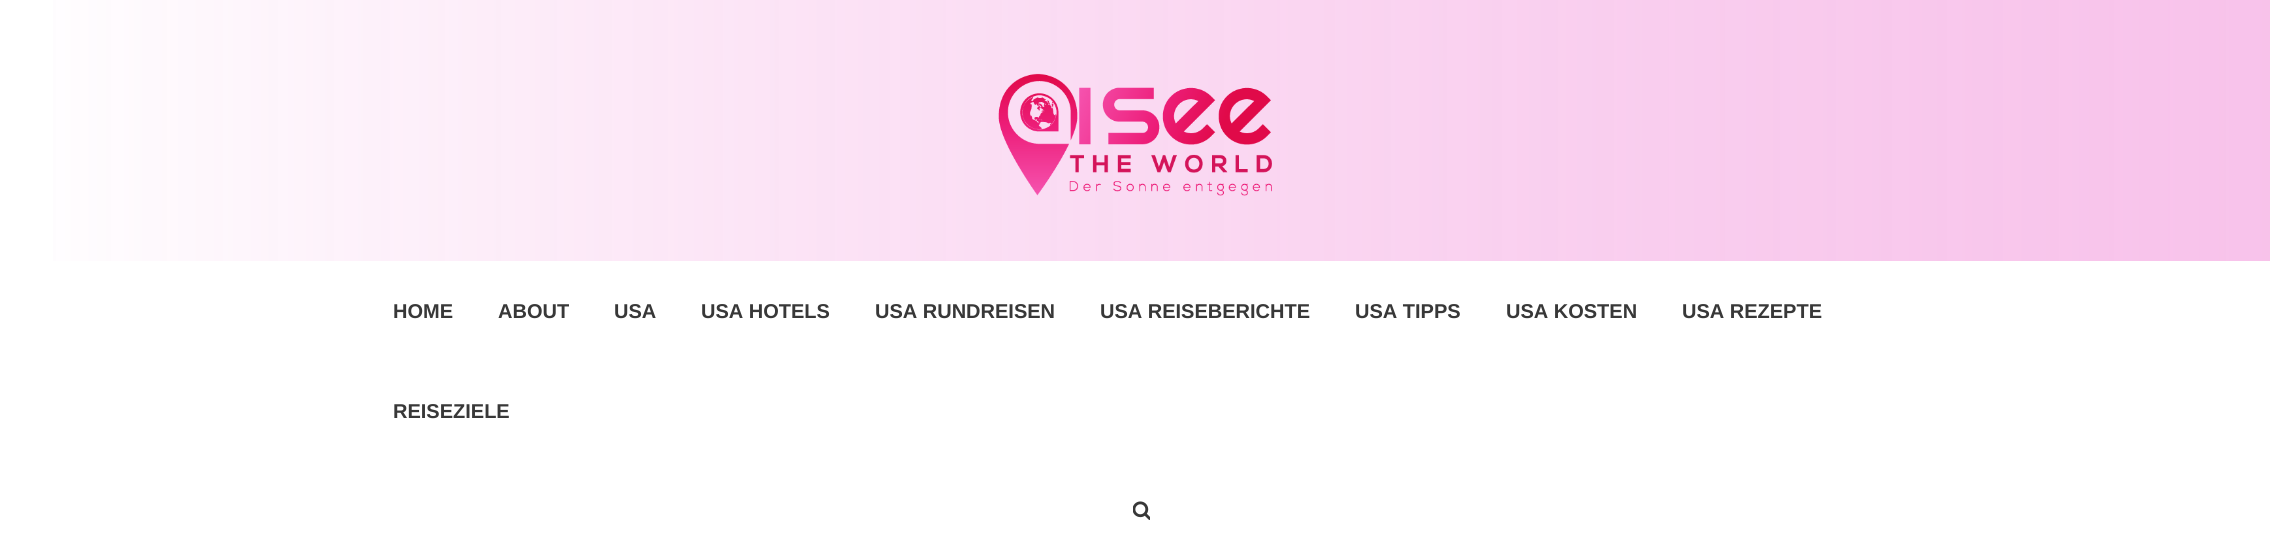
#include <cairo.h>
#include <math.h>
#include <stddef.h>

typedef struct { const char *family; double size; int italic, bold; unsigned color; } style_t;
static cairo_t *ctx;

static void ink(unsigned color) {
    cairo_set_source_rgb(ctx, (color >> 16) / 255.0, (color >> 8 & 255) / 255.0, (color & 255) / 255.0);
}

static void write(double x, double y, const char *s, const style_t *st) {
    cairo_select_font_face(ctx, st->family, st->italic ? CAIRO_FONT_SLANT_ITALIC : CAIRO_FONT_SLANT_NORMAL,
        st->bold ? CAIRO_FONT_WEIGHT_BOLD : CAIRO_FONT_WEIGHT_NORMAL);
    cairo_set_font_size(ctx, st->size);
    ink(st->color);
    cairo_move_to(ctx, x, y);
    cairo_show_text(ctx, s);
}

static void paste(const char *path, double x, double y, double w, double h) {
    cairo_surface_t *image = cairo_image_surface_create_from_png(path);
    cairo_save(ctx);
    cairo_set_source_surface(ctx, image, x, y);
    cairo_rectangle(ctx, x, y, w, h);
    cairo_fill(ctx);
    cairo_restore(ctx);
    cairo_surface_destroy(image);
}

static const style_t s1 = {"Liberation Sans", 20, 0, 1, 0x383838};

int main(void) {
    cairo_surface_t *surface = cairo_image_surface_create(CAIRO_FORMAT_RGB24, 2270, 549);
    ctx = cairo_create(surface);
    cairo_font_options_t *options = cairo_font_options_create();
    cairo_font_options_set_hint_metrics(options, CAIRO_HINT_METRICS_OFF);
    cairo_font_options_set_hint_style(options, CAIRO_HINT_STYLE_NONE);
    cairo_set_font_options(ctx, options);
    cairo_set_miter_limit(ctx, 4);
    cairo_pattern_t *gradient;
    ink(0xffffff);
    cairo_paint(ctx);
    gradient = cairo_pattern_create_linear(0, 281, 2270, 281);
    cairo_pattern_add_color_stop_rgba(gradient, 0, 1, 1, 1, 0.5);
    cairo_pattern_add_color_stop_rgba(gradient, 1, 0.918, 0.302, 0.765, 0.34);
    cairo_set_source(ctx, gradient);
    cairo_pattern_destroy(gradient);
    cairo_rectangle(ctx, 53, 0, 2217, 261);
    cairo_fill(ctx);
    paste("pic1.png", 998, 73, 274, 123);
    write(393, 318, "HOME", &s1);
    write(498, 318, "ABOUT", &s1);
    write(614, 318, "USA", &s1);
    write(701, 318, "USA HOTELS", &s1);
    write(875, 318, "USA RUNDREISEN", &s1);
    write(1100, 318, "USA REISEBERICHTE", &s1);
    write(1355, 318, "USA TIPPS", &s1);
    write(1506, 318, "USA KOSTEN", &s1);
    write(1682, 318, "USA REZEPTE", &s1);
    write(393, 418, "REISEZIELE", &s1);
    paste("pic2.png", 1133, 501, 17, 19);
    cairo_surface_write_to_png(surface, "screenshot.png");
    cairo_font_options_destroy(options);
    cairo_destroy(ctx);
    cairo_surface_destroy(surface);
    return 0;
}
